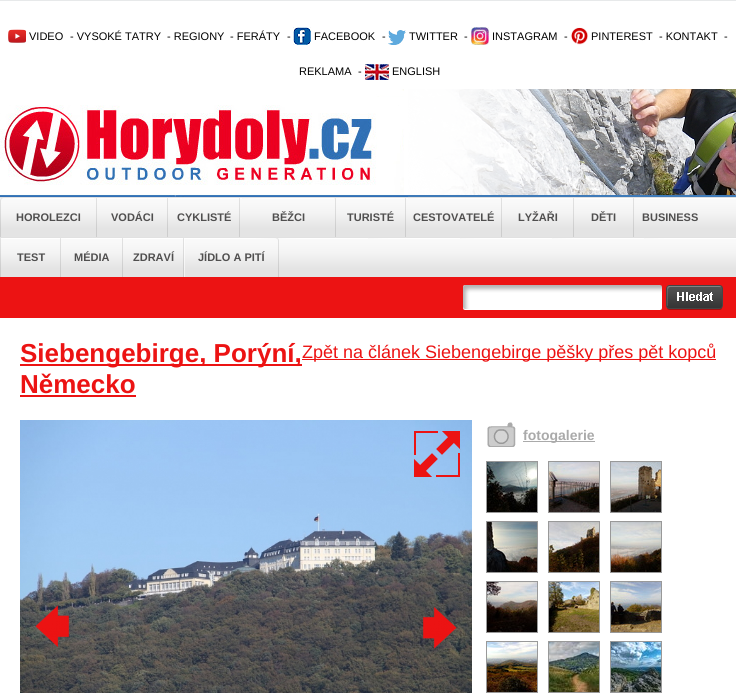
#include <cairo.h>
#include <math.h>
#include <stddef.h>

typedef struct { const char *family; double size; int italic, bold; unsigned color; } style_t;
static cairo_t *ctx;

static void ink(unsigned color) {
    cairo_set_source_rgb(ctx, (color >> 16) / 255.0, (color >> 8 & 255) / 255.0, (color & 255) / 255.0);
}

static void write(double x, double y, const char *s, const style_t *st) {
    cairo_select_font_face(ctx, st->family, st->italic ? CAIRO_FONT_SLANT_ITALIC : CAIRO_FONT_SLANT_NORMAL,
        st->bold ? CAIRO_FONT_WEIGHT_BOLD : CAIRO_FONT_WEIGHT_NORMAL);
    cairo_set_font_size(ctx, st->size);
    ink(st->color);
    cairo_move_to(ctx, x, y);
    cairo_show_text(ctx, s);
}

static void block(double x, double y, double w, double h, unsigned color) {
    ink(color);
    cairo_rectangle(ctx, x, y, w, h);
    cairo_fill(ctx);
}

static void paste(const char *path, double x, double y, double w, double h) {
    cairo_surface_t *image = cairo_image_surface_create_from_png(path);
    cairo_save(ctx);
    cairo_set_source_surface(ctx, image, x, y);
    cairo_rectangle(ctx, x, y, w, h);
    cairo_fill(ctx);
    cairo_restore(ctx);
    cairo_surface_destroy(image);
}

static const style_t s1 = {"Liberation Sans", 11, 0, 0, 0x000000};
static const style_t s2 = {"Liberation Sans", 11, 0, 1, 0x504f4f};
static const style_t s3 = {"Liberation Sans", 26, 0, 1, 0xec1313};
static const style_t s4 = {"Liberation Sans", 18, 0, 0, 0xec1313};
static const style_t s5 = {"Liberation Sans", 14, 0, 1, 0xaaaaaa};

int main(void) {
    cairo_surface_t *surface = cairo_image_surface_create(CAIRO_FORMAT_RGB24, 736, 693);
    ctx = cairo_create(surface);
    cairo_font_options_t *options = cairo_font_options_create();
    cairo_font_options_set_hint_metrics(options, CAIRO_HINT_METRICS_OFF);
    cairo_font_options_set_hint_style(options, CAIRO_HINT_STYLE_NONE);
    cairo_set_font_options(ctx, options);
    cairo_set_miter_limit(ctx, 4);
    ink(0xe7e9ea);
    cairo_paint(ctx);
    block(0, 1, 736, 692, 0xffffff);
    paste("pic1.png", 8, 29, 18, 14);
    write(29, 40, "VIDEO", &s1);
    write(70, 40, "- VYSOKÉ TATRY", &s1);
    write(167, 40, "- REGIONY", &s1);
    write(230, 40, "- FERÁTY", &s1);
    write(287, 40, "-", &s1);
    paste("pic2.png", 293, 27, 18, 18);
    write(314, 40, "FACEBOOK", &s1);
    write(382, 40, "-", &s1);
    paste("pic3.png", 388, 30, 18, 15);
    write(409, 40, "TWITTER", &s1);
    write(464, 40, "-", &s1);
    paste("pic4.png", 471, 27, 18, 18);
    write(492, 40, "INSTAGRAM", &s1);
    write(564, 40, "-", &s1);
    paste("pic5.png", 571, 27, 17, 18);
    write(591, 40, "PINTEREST", &s1);
    write(659, 40, "- KONTAKT", &s1);
    write(724, 40, "-", &s1);
    write(299, 75, "REKLAMA", &s1);
    write(358, 75, "-", &s1);
    paste("pic6.png", 365, 64, 24, 16);
    write(392, 75, "ENGLISH", &s1);
    paste("pic7.png", 0, 89, 736, 108);
    paste("pic8.png", 0, 197, 736, 80);
    paste("pic9.png", 0, 198, 94, 39);
    write(16, 221, "HOROLEZCI", &s2);
    paste("pic10.png", 96, 198, 1, 39);
    paste("pic11.png", 97, 198, 70, 39);
    write(111, 221, "VODÁCI", &s2);
    paste("pic10.png", 167, 198, 1, 39);
    paste("pic12.png", 168, 198, 71, 39);
    write(177, 221, "CYKLISTÉ", &s2);
    paste("pic10.png", 239, 198, 1, 39);
    paste("pic13.png", 240, 198, 95, 39);
    write(272, 221, "BĚŽCI", &s2);
    paste("pic10.png", 335, 198, 1, 39);
    paste("pic14.png", 336, 198, 69, 39);
    write(347, 221, "TURISTÉ", &s2);
    paste("pic10.png", 405, 198, 1, 39);
    paste("pic13.png", 406, 198, 95, 39);
    write(413, 221, "CESTOVATELÉ", &s2);
    paste("pic10.png", 501, 198, 1, 39);
    paste("pic12.png", 502, 198, 71, 39);
    write(518, 221, "LYŽAŘI", &s2);
    paste("pic10.png", 573, 198, 1, 39);
    paste("pic15.png", 574, 198, 59, 39);
    write(591, 221, "DĚTI", &s2);
    paste("pic10.png", 633, 198, 1, 39);
    paste("pic12.png", 634, 198, 71, 39);
    write(642, 221, "BUSINESS", &s2);
    paste("pic10.png", 0, 238, 1, 39);
    paste("pic15.png", 1, 238, 59, 39);
    write(17, 261, "TEST", &s2);
    paste("pic10.png", 60, 238, 1, 39);
    paste("pic16.png", 61, 238, 61, 39);
    write(74, 261, "MÉDIA", &s2);
    paste("pic10.png", 122, 238, 1, 39);
    paste("pic15.png", 123, 238, 59, 39);
    write(133, 261, "ZDRAVÍ", &s2);
    paste("pic17.png", 183, 238, 96, 39);
    write(198, 261, "JÍDLO A PITÍ", &s2);
    block(0, 277, 736, 41, 0xec1313);
    paste("pic18.png", 463, 285, 199, 25);
    paste("pic19.png", 666, 285, 57, 25);
    block(20, 364, 282, 2, 0xec1313);
    write(20, 362, "Siebengebirge, Porýní,", &s3);
    write(20, 393, "Německo", &s3);
    block(20, 395, 116, 2, 0xec1313);
    block(302, 359, 414, 1, 0xec1313);
    write(302, 358, "Zpět na článek Siebengebirge pěšky přes pět kopců", &s4);
    paste("pic20.png", 20, 420, 452, 273);
    paste("pic21.png", 414, 431, 47, 46);
    paste("pic22.png", 35, 605, 35, 42);
    paste("pic23.png", 422, 607, 35, 42);
    paste("pic24.png", 487, 422, 29, 25);
    block(523, 441, 72, 1, 0xaaaaaa);
    write(523, 440, "fotogalerie", &s5);
    cairo_rectangle(ctx, 486.5, 461.5, 51, 51);
    ink(0x999999);
    cairo_set_line_width(ctx, 1);
    cairo_stroke(ctx);
    paste("pic25.png", 487, 462, 50, 50);
    cairo_rectangle(ctx, 548.5, 461.5, 51, 51);
    cairo_stroke(ctx);
    paste("pic26.png", 549, 462, 50, 50);
    cairo_rectangle(ctx, 610.5, 461.5, 51, 51);
    cairo_stroke(ctx);
    paste("pic27.png", 611, 462, 50, 50);
    cairo_rectangle(ctx, 486.5, 521.5, 51, 51);
    cairo_stroke(ctx);
    paste("pic28.png", 487, 522, 50, 50);
    cairo_rectangle(ctx, 548.5, 521.5, 51, 51);
    cairo_stroke(ctx);
    paste("pic29.png", 549, 522, 50, 50);
    cairo_rectangle(ctx, 610.5, 521.5, 51, 51);
    cairo_stroke(ctx);
    paste("pic30.png", 611, 522, 50, 50);
    cairo_rectangle(ctx, 486.5, 581.5, 51, 51);
    cairo_stroke(ctx);
    paste("pic31.png", 487, 582, 50, 50);
    cairo_rectangle(ctx, 548.5, 581.5, 51, 51);
    cairo_stroke(ctx);
    paste("pic32.png", 549, 582, 50, 50);
    cairo_rectangle(ctx, 610.5, 581.5, 51, 51);
    cairo_stroke(ctx);
    paste("pic33.png", 611, 582, 50, 50);
    cairo_rectangle(ctx, 486.5, 641.5, 51, 51);
    cairo_stroke(ctx);
    paste("pic34.png", 487, 642, 50, 50);
    cairo_rectangle(ctx, 548.5, 641.5, 51, 51);
    cairo_stroke(ctx);
    paste("pic35.png", 549, 642, 50, 50);
    cairo_rectangle(ctx, 610.5, 641.5, 51, 51);
    cairo_stroke(ctx);
    paste("pic36.png", 611, 642, 50, 50);
    cairo_surface_write_to_png(surface, "screenshot.png");
    cairo_font_options_destroy(options);
    cairo_destroy(ctx);
    cairo_surface_destroy(surface);
    return 0;
}
